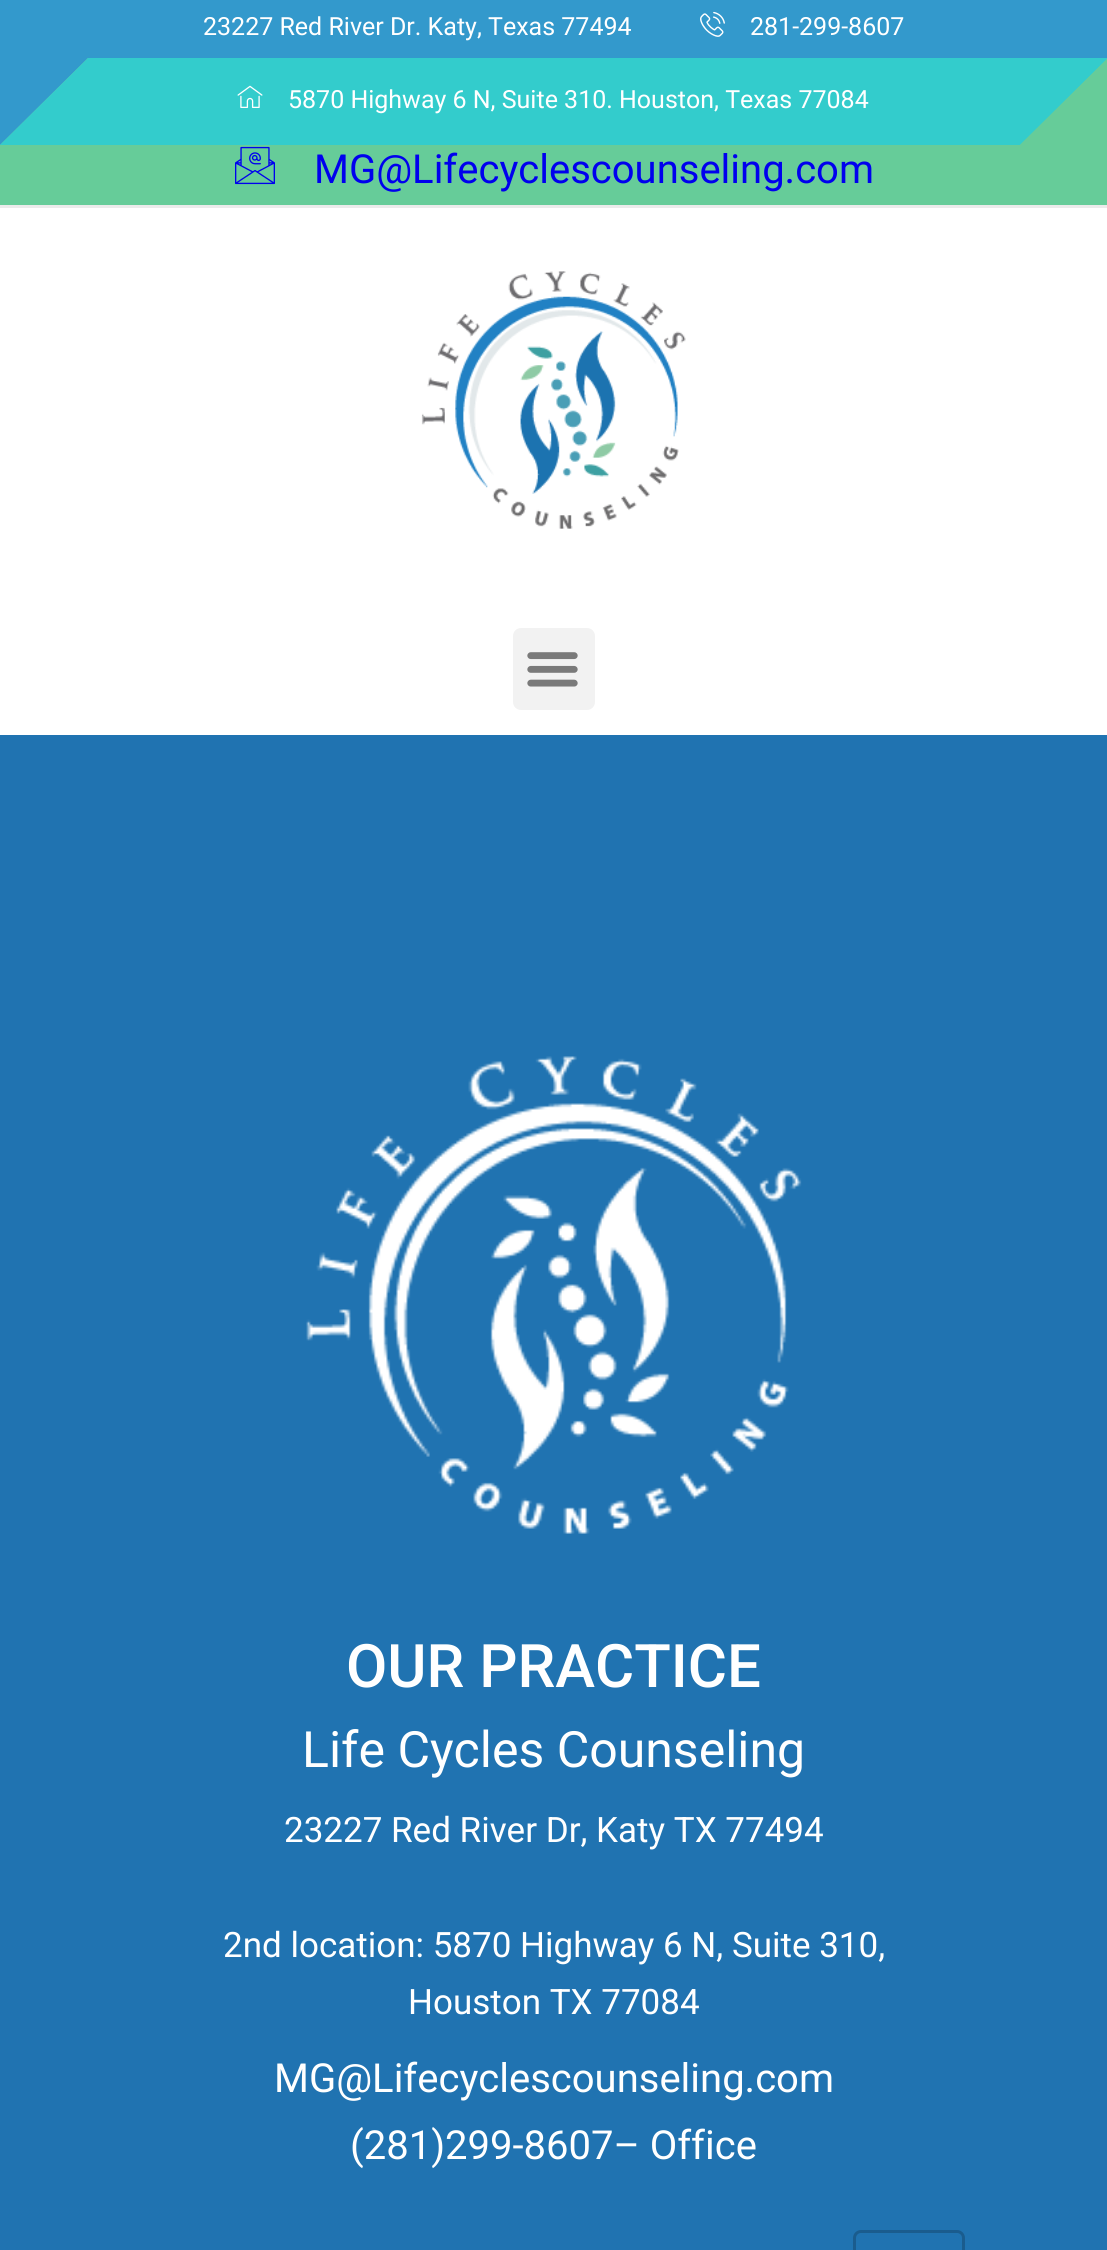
#include <cairo.h>
#include <math.h>
#include <stddef.h>

typedef struct { const char *family; double size; int italic, bold; unsigned color; } style_t;
static cairo_t *ctx;

static void ink(unsigned color) {
    cairo_set_source_rgb(ctx, (color >> 16) / 255.0, (color >> 8 & 255) / 255.0, (color & 255) / 255.0);
}

static void write(double x, double y, const char *s, const style_t *st) {
    cairo_select_font_face(ctx, st->family, st->italic ? CAIRO_FONT_SLANT_ITALIC : CAIRO_FONT_SLANT_NORMAL,
        st->bold ? CAIRO_FONT_WEIGHT_BOLD : CAIRO_FONT_WEIGHT_NORMAL);
    cairo_set_font_size(ctx, st->size);
    ink(st->color);
    cairo_move_to(ctx, x, y);
    cairo_show_text(ctx, s);
}

static void block(double x, double y, double w, double h, unsigned color) {
    ink(color);
    cairo_rectangle(ctx, x, y, w, h);
    cairo_fill(ctx);
}

static void round_path(double x, double y, double w, double h, double r) {
    cairo_new_sub_path(ctx);
    cairo_arc(ctx, x + w - r, y + h - r, r, 0, M_PI / 2);
    cairo_arc(ctx, x + r, y + h - r, r, M_PI / 2, M_PI);
    cairo_arc(ctx, x + r, y + r, r, M_PI, 1.5 * M_PI);
    cairo_arc(ctx, x + w - r, y + r, r, 1.5 * M_PI, 2 * M_PI);
    cairo_close_path(ctx);
}

static void paste(const char *path, double x, double y, double w, double h) {
    cairo_surface_t *image = cairo_image_surface_create_from_png(path);
    cairo_save(ctx);
    cairo_set_source_surface(ctx, image, x, y);
    cairo_rectangle(ctx, x, y, w, h);
    cairo_fill(ctx);
    cairo_restore(ctx);
    cairo_surface_destroy(image);
}

static const style_t s1 = {"Roboto", 25, 0, 0, 0xffffff};
static const style_t s2 = {"Roboto", 40, 0, 0, 0x0000ee};
static const style_t s3 = {"Roboto Medium", 60, 0, 0, 0xffffff};
static const style_t s4 = {"Roboto", 50, 0, 0, 0xffffff};
static const style_t s5 = {"Roboto", 35, 0, 0, 0xffffff};
static const style_t s6 = {"Roboto", 40, 0, 0, 0xffffff};

int main(void) {
    cairo_surface_t *surface = cairo_image_surface_create(CAIRO_FORMAT_RGB24, 1107, 2250);
    ctx = cairo_create(surface);
    cairo_font_options_t *options = cairo_font_options_create();
    cairo_font_options_set_hint_metrics(options, CAIRO_HINT_METRICS_OFF);
    cairo_font_options_set_hint_style(options, CAIRO_HINT_STYLE_NONE);
    cairo_set_font_options(ctx, options);
    cairo_set_miter_limit(ctx, 4);
    ink(0xffffff);
    cairo_paint(ctx);
    block(0, 58, 1107, 147, 0x66cc99);
    block(0, 0, 1107, 58, 0x3399cc);
    write(203, 35, "23227 Red River Dr. Katy, Texas 77494", &s1);
    paste("pic1.png", 700, 11, 25, 26);
    write(750, 35, "281-299-8607", &s1);
    ink(0x3399cc);
    cairo_new_path(ctx);
    cairo_move_to(ctx, 0, 58);
    cairo_line_to(ctx, 88, 58);
    cairo_line_to(ctx, 0, 145);
    cairo_close_path(ctx);
    cairo_fill(ctx);
    ink(0x33cccc);
    cairo_new_path(ctx);
    cairo_move_to(ctx, 88, 58);
    cairo_line_to(ctx, 88, 145);
    cairo_line_to(ctx, 0, 145);
    cairo_close_path(ctx);
    cairo_fill(ctx);
    block(88, 58, 932, 87, 0x33cccc);
    paste("pic2.png", 237, 85, 26, 23);
    write(288, 108, "5870 Highway 6 N, Suite 310. Houston, Texas 77084", &s1);
    ink(0x33cccc);
    cairo_new_path(ctx);
    cairo_move_to(ctx, 1020, 58);
    cairo_line_to(ctx, 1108, 58);
    cairo_line_to(ctx, 1020, 145);
    cairo_close_path(ctx);
    cairo_fill(ctx);
    ink(0x66cc99);
    cairo_new_path(ctx);
    cairo_move_to(ctx, 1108, 58);
    cairo_line_to(ctx, 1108, 145);
    cairo_line_to(ctx, 1020, 145);
    cairo_close_path(ctx);
    cairo_fill(ctx);
    paste("pic3.png", 235, 146, 40, 39);
    write(314, 183, "MG@Lifecyclescounseling.com", &s2);
    block(0, 205, 1107, 3, 0xebebeb);
    paste("pic4.png", 421, 271, 265, 258);
    ink(0xf2f2f2);
    round_path(513, 628, 82, 82, 8);
    cairo_fill(ctx);
    paste("pic5.png", 527, 652, 51, 35);
    block(0, 735, 1107, 1515, 0x2073b1);
    paste("pic6.png", 306, 1056, 496, 478);
    write(346, 1687, "OUR PRACTICE", &s3);
    write(302, 1767, "Life Cycles Counseling", &s4);
    write(284, 1842, "23227 Red River Dr, Katy TX 77494", &s5);
    write(223, 1957, "2nd location: 5870 Highway 6 N, Suite 310,", &s5);
    write(408, 2014, "Houston TX 77084", &s5);
    write(274, 2092, "MG@Lifecyclescounseling.com", &s6);
    write(350, 2159, "(281)299-8607– Office", &s6);
    round_path(854.5, 2231.5, 109, 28, 6.5);
    ink(0x1a5c8e);
    cairo_set_line_width(ctx, 3);
    cairo_stroke(ctx);
    cairo_surface_write_to_png(surface, "screenshot.png");
    cairo_font_options_destroy(options);
    cairo_destroy(ctx);
    cairo_surface_destroy(surface);
    return 0;
}
